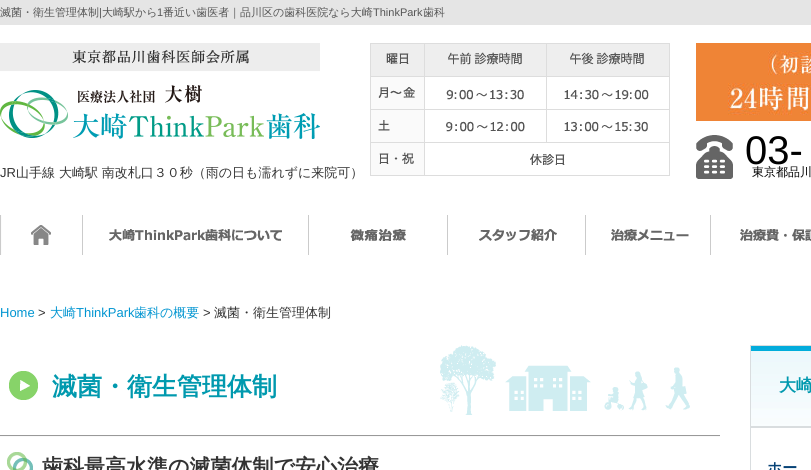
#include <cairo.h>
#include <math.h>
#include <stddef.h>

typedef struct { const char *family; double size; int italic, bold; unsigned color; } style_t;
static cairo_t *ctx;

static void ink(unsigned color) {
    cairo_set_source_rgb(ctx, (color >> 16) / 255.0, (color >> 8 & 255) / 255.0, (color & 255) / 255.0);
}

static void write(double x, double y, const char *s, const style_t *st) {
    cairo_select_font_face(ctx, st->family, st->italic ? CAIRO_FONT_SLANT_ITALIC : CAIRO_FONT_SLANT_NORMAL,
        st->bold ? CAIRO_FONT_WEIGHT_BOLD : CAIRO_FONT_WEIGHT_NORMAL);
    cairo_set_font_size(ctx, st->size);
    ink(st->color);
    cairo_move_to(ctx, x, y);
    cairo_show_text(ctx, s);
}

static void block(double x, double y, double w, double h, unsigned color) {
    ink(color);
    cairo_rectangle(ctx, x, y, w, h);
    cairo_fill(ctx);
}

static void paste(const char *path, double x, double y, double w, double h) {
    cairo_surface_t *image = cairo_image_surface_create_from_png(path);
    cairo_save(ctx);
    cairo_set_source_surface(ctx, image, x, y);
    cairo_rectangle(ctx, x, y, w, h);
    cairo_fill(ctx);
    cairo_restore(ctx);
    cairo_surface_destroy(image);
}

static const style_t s1 = {"WenQuanYi Zen Hei Medium", 11, 0, 0, 0x555555};
static const style_t s2 = {"Liberation Sans", 11, 0, 0, 0x555555};
static const style_t s3 = {"Liberation Sans", 13, 0, 0, 0x333333};
static const style_t s4 = {"WenQuanYi Zen Hei Medium", 13, 0, 0, 0x333333};
static const style_t s5 = {"Liberation Sans", 40, 0, 0, 0x000000};
static const style_t s6 = {"WenQuanYi Zen Hei Medium", 12, 0, 0, 0x000000};
static const style_t s7 = {"Liberation Sans", 13, 0, 0, 0x0195d1};
static const style_t s8 = {"WenQuanYi Zen Hei Medium", 13, 0, 0, 0x0195d1};
static const style_t s9 = {"WenQuanYi Zen Hei", 25, 0, 1, 0x0099ae};
static const style_t s10 = {"WenQuanYi Zen Hei", 21, 0, 1, 0x333333};
static const style_t s11 = {"WenQuanYi Zen Hei", 17, 0, 1, 0x0099ae};
static const style_t s12 = {"WenQuanYi Zen Hei", 15, 0, 1, 0x074377};

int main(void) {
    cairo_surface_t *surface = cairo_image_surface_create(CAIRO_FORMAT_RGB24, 811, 470);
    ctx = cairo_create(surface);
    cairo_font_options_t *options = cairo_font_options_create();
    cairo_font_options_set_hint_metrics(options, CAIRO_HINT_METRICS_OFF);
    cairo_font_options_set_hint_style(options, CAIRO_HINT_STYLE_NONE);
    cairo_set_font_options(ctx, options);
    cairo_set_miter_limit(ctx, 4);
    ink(0xffffff);
    cairo_paint(ctx);
    block(0, 0, 811, 25, 0xe5e5e5);
    write(0, 16, "滅菌・衛生管理体制", &s1);
    write(99, 16, "|", &s2);
    write(102, 16, "大崎駅から", &s1);
    write(157, 16, "1", &s2);
    write(163, 16, "番近い歯医者｜品川区の歯科医院なら大崎", &s1);
    write(373, 16, "ThinkPark", &s2);
    write(423, 16, "歯科", &s1);
    paste("pic1.png", 370, 43, 300, 133);
    paste("pic2.png", 696, 43, 115, 78);
    paste("pic3.png", 0, 43, 320, 96);
    write(0, 177, "JR", &s3);
    write(16, 177, "山手線 大崎駅 南改札口３０秒（雨の日も濡れずに来院可）", &s4);
    paste("pic4.png", 696, 135, 37, 44);
    write(745, 164, "03-", &s5);
    write(752, 176, "東京都品川", &s6);
    paste("pic5.png", 0, 215, 83, 40);
    paste("pic6.png", 109, 215, 200, 40);
    paste("pic7.png", 350, 215, 98, 40);
    paste("pic8.png", 479, 215, 107, 40);
    paste("pic9.png", 611, 215, 100, 40);
    paste("pic10.png", 740, 229, 71, 12);
    write(0, 317, "Home", &s7);
    write(38, 317, ">", &s3);
    write(50, 317, "大崎", &s8);
    write(76, 317, "ThinkPark", &s7);
    write(134, 317, "歯科の概要", &s8);
    write(203, 317, ">", &s3);
    write(214, 317, "滅菌・衛生管理体制", &s4);
    paste("pic11.png", 9, 345, 681, 70);
    write(52, 395, "滅菌・衛生管理体制", &s9);
    paste("pic12.png", 0, 435, 720, 35);
    write(42, 474, "歯科最高水準の滅菌体制で安心治療", &s10);
    paste("pic13.png", 751, 346, 60, 80);
    cairo_rectangle(ctx, 750.5, 345.5, 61, 81);
    ink(0xd9dddf);
    cairo_set_line_width(ctx, 1);
    cairo_stroke(ctx);
    write(779, 391, "大崎", &s11);
    cairo_rectangle(ctx, 750.5, 427.5, 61, 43);
    ink(0xd9dddf);
    cairo_stroke(ctx);
    write(767, 473, "ホー", &s12);
    cairo_surface_write_to_png(surface, "screenshot.png");
    cairo_font_options_destroy(options);
    cairo_destroy(ctx);
    cairo_surface_destroy(surface);
    return 0;
}
